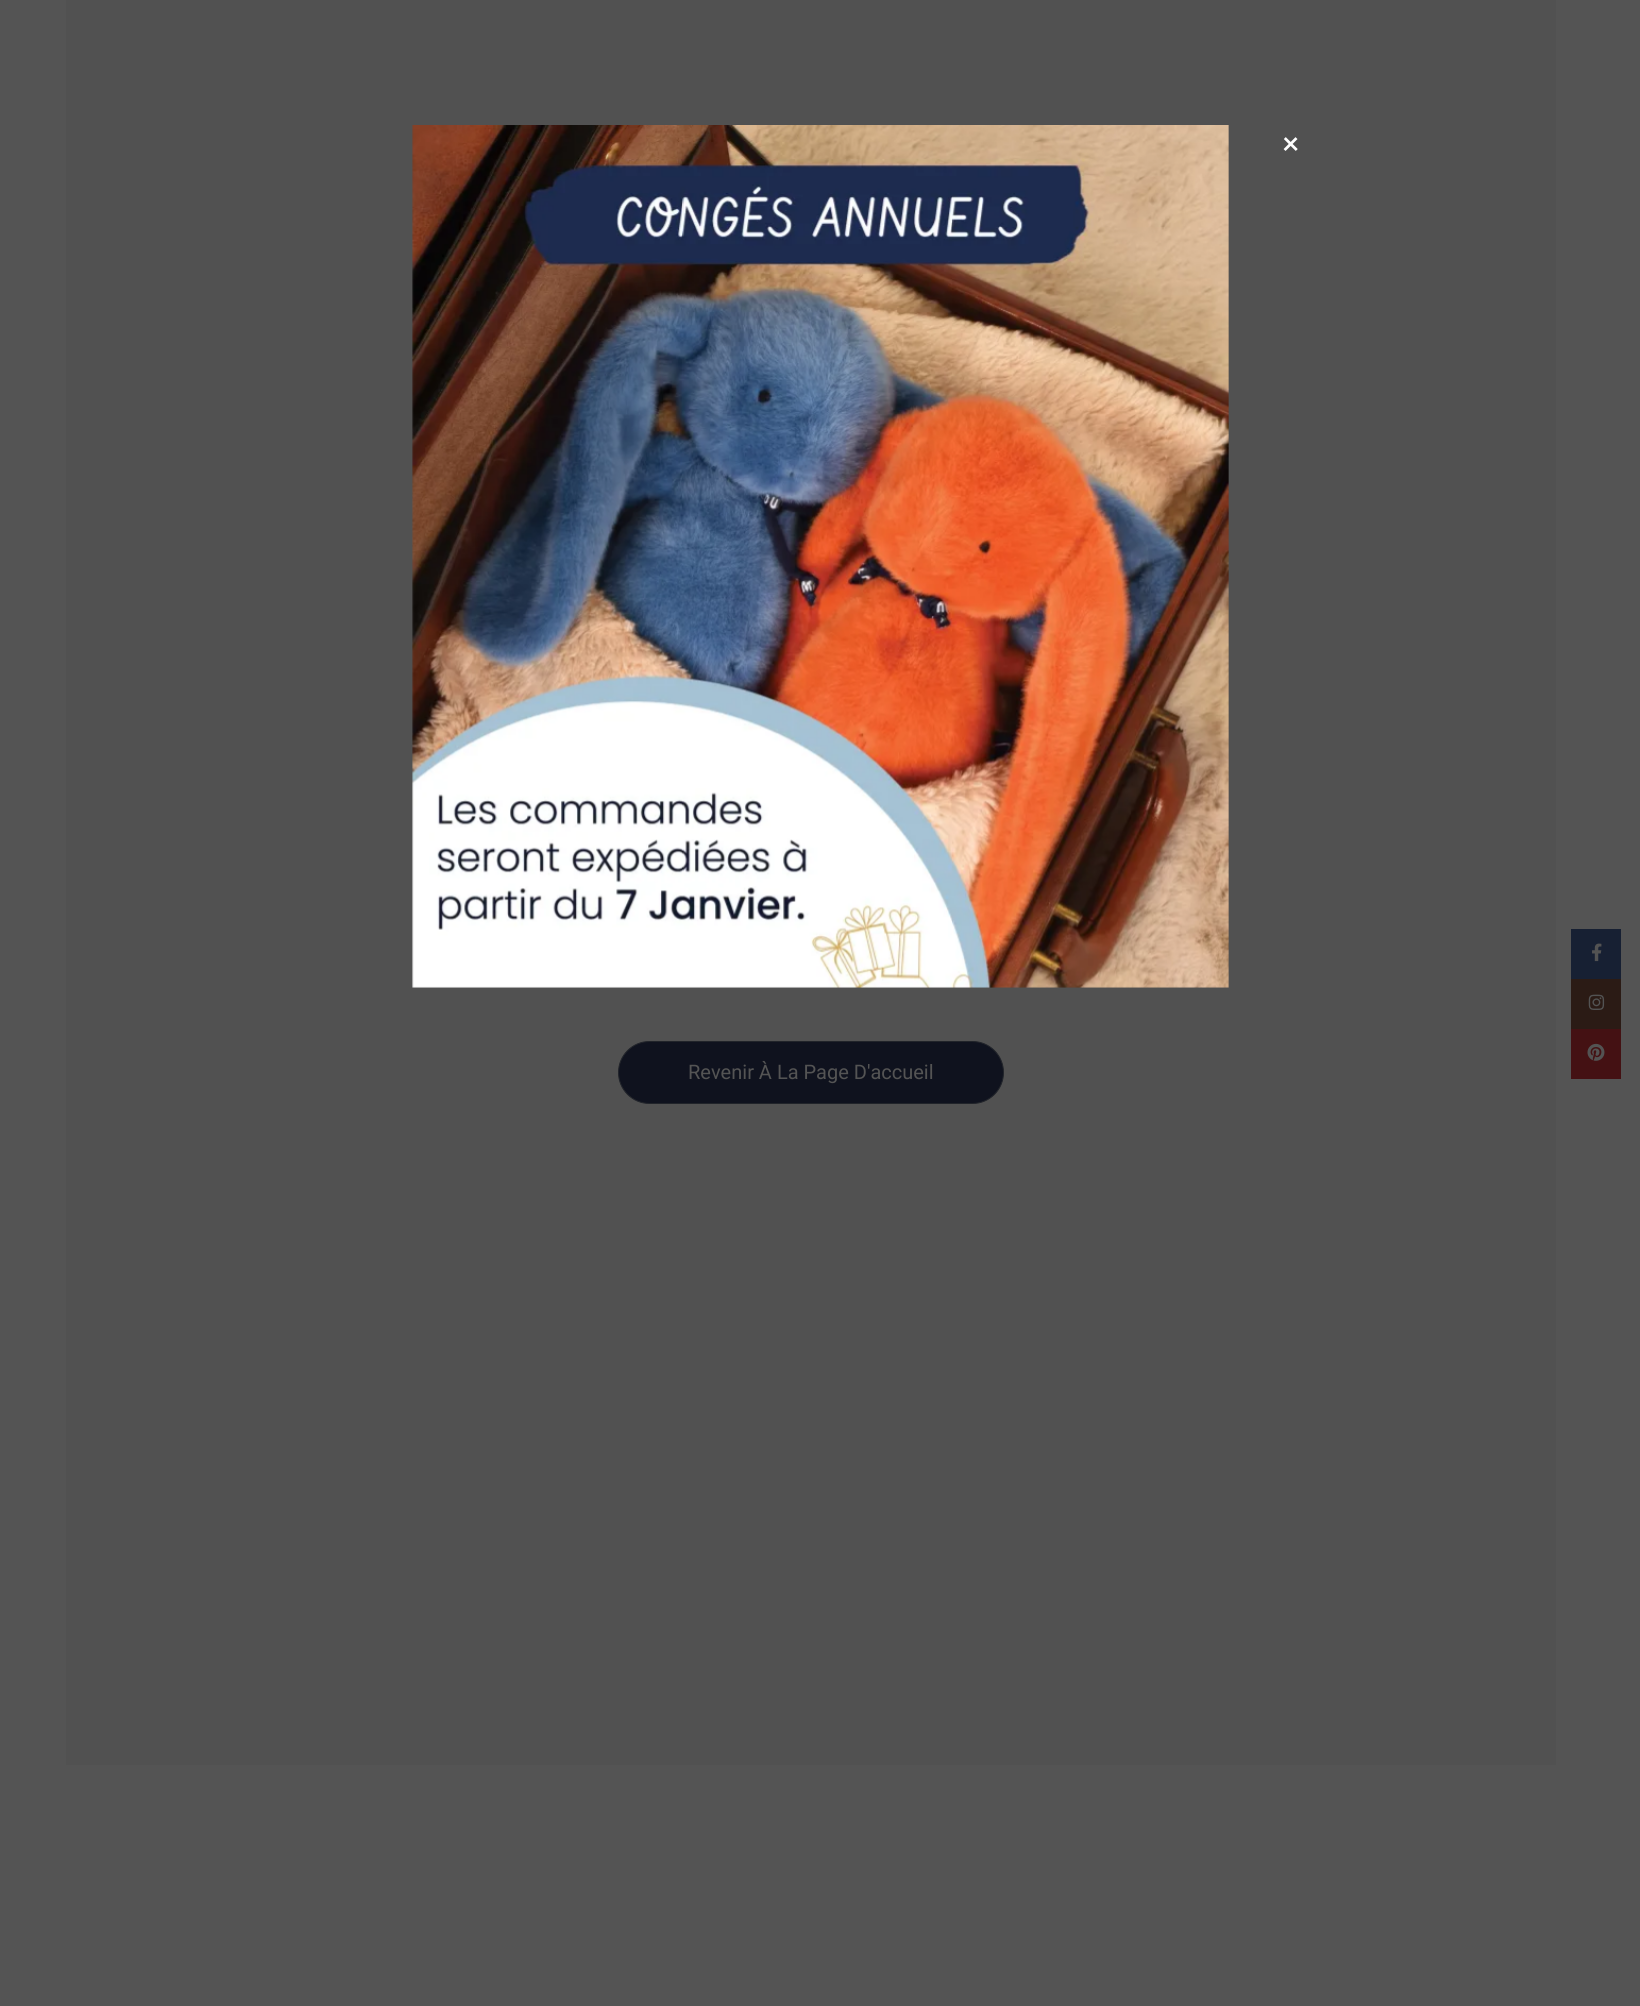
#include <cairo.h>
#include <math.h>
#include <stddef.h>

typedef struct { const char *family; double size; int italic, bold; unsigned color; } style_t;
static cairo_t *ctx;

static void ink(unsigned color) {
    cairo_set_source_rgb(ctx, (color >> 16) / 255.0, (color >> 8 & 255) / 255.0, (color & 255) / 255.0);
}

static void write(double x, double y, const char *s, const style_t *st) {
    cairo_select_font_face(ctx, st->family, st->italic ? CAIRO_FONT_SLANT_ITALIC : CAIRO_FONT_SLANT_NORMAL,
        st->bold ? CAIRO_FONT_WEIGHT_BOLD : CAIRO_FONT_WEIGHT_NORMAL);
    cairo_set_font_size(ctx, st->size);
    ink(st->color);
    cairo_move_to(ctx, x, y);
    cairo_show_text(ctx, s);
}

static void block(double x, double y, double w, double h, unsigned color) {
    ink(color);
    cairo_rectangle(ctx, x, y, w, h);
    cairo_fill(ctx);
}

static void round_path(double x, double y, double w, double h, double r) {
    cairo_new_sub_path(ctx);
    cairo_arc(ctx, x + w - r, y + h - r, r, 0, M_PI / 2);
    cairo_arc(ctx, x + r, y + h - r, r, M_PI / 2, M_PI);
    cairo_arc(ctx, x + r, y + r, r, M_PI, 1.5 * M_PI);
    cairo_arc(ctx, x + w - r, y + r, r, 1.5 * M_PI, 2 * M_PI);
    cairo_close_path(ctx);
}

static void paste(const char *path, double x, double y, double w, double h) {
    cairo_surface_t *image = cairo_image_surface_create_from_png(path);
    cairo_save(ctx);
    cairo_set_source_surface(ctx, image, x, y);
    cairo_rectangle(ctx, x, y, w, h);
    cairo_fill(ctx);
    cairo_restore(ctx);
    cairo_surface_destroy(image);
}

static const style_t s1 = {"Lato", 30, 0, 1, 0xffffff};
static const style_t s2 = {"Roboto", 20, 0, 0, 0x545454};

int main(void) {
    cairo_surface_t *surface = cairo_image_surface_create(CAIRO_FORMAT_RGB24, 1640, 2006);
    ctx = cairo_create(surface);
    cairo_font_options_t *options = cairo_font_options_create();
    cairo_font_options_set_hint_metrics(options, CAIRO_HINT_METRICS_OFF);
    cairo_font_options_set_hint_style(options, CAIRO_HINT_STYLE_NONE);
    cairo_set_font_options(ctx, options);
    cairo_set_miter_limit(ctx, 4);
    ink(0x545454);
    cairo_paint(ctx);
    block(66, 0, 1490, 1765, 0x515151);
    paste("pic1.png", 412, 125, 817, 863);
    write(1282, 154, "×", &s1);
    ink(0x0f121e);
    round_path(618.5, 1041.5, 385, 62, 31);
    cairo_fill_preserve(ctx);
    ink(0x21242a);
    cairo_set_line_width(ctx, 1);
    cairo_stroke(ctx);
    write(688, 1079, "Revenir À La Page D'accueil", &s2);
    block(1571, 929, 50, 50, 0x172033);
    paste("pic2.png", 1592, 943, 10, 19);
    block(1571, 979, 50, 50, 0x2b1b15);
    paste("pic3.png", 1588, 994, 17, 16);
    block(1571, 1029, 50, 50, 0x441113);
    paste("pic4.png", 1587, 1043, 18, 18);
    cairo_surface_write_to_png(surface, "screenshot.png");
    cairo_font_options_destroy(options);
    cairo_destroy(ctx);
    cairo_surface_destroy(surface);
    return 0;
}
